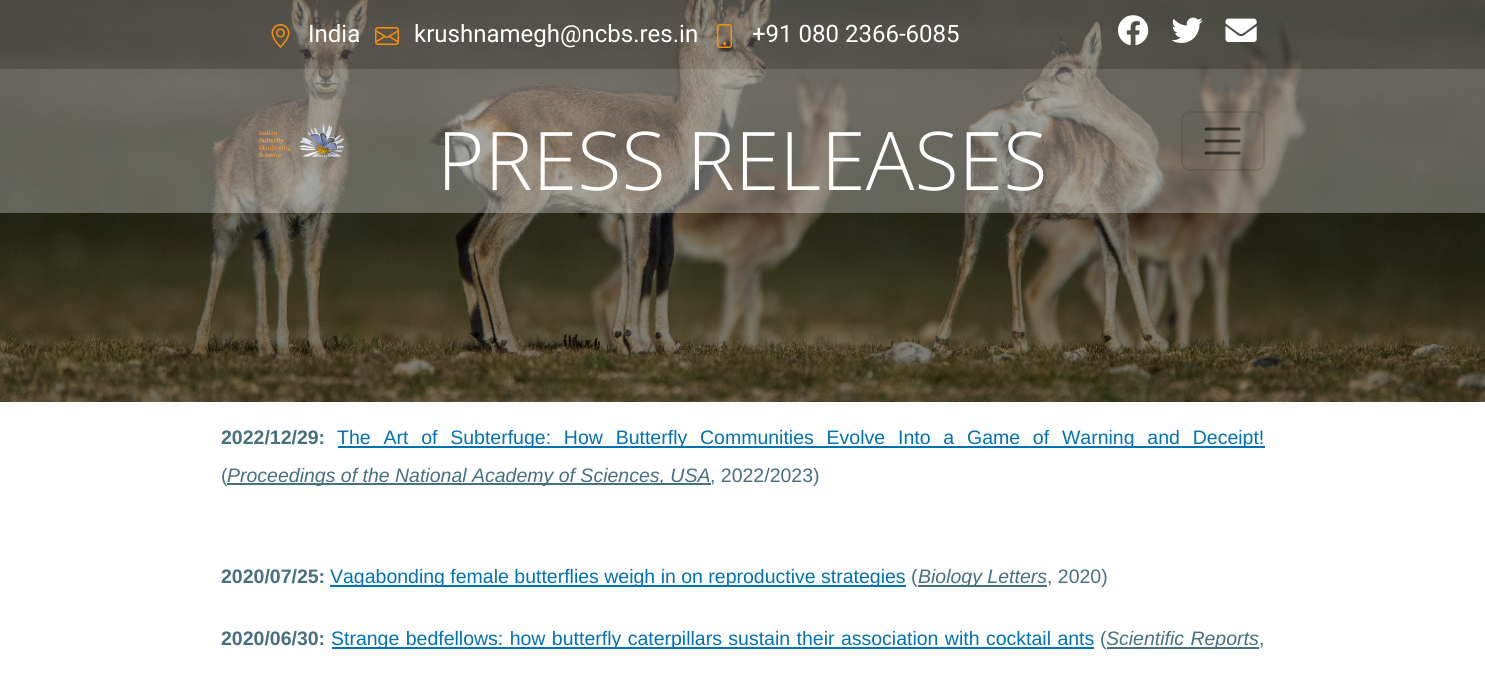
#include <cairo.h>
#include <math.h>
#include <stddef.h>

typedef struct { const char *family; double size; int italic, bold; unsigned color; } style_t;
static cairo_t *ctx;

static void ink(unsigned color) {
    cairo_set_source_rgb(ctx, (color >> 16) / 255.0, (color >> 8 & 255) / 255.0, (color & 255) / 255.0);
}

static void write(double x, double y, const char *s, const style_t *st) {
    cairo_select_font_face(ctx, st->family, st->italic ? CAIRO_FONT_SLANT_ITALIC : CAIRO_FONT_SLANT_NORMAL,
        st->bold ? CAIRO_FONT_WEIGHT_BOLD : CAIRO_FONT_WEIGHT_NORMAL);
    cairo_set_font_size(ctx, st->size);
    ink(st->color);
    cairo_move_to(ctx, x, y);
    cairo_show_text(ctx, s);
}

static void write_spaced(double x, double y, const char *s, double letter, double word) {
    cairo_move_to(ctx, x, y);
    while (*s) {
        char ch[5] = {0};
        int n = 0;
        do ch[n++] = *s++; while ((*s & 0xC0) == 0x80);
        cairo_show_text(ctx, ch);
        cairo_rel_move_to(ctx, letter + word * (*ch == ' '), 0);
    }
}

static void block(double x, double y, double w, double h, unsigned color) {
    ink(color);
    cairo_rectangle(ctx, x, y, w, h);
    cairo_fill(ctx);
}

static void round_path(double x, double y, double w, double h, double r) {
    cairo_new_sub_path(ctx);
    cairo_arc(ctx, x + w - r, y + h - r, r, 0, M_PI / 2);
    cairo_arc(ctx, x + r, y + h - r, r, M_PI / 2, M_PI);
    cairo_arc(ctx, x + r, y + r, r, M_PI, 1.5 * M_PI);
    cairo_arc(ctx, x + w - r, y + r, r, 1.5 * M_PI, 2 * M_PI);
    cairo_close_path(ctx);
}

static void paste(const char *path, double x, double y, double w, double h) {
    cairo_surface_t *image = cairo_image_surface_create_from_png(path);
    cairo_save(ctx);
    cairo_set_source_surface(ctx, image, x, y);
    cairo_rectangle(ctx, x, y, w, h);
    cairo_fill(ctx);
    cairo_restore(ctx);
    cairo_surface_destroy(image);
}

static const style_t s1 = {"Roboto", 24, 0, 0, 0xffffff};
static const style_t s2 = {"Open Sans Light", 81, 0, 0, 0xffffff};
static const style_t s3 = {"Liberation Sans", 19.5, 0, 1, 0x46707f};
static const style_t s4 = {"Liberation Sans", 19.5, 0, 0, 0x46707f};
static const style_t s5 = {"Liberation Sans", 19.5, 1, 0, 0x46707f};
static const style_t s6 = {"Liberation Sans", 19.5, 0, 0, 0x0071b3};

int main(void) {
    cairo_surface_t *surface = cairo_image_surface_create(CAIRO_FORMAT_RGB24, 1485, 677);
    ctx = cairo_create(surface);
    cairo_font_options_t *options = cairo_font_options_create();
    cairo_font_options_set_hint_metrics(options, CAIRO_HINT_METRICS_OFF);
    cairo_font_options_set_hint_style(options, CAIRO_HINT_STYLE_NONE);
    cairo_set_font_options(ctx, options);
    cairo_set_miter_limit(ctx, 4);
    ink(0xffffff);
    cairo_paint(ctx);
    paste("pic8.png", 0, 0, 1485, 402);
    cairo_set_source_rgba(ctx, 1, 1, 1, 0.2);
    cairo_rectangle(ctx, 0, 0, 1485, 69);
    cairo_fill(ctx);
    paste("pic1.png", 271, 24, 19, 24);
    write(308, 42, "India", &s1);
    paste("pic2.png", 375, 27, 24, 18);
    write(414, 42, "krushnamegh@ncbs.res.in", &s1);
    paste("pic3.png", 717, 24, 15, 24);
    write(752, 42, "+91 080 2366-6085", &s1);
    paste("pic4.png", 1118, 15, 31, 31);
    paste("pic5.png", 1171, 17, 32, 26);
    paste("pic6.png", 1225, 18, 32, 24);
    write(437, 190, "PRESS RELEASES", &s2);
    cairo_set_source_rgba(ctx, 1, 1, 1, 0.3);
    cairo_rectangle(ctx, 0, 69, 1485, 144);
    cairo_fill(ctx);
    paste("pic7.png", 258, 124, 87, 33);
    round_path(1182, 112, 82, 58, 8);
    cairo_set_source_rgba(ctx, 0, 0, 0, 0.1);
    cairo_stroke(ctx);
    cairo_new_path(ctx);
    cairo_move_to(ctx, 1206, 129);
    cairo_line_to(ctx, 1239, 129);
    cairo_move_to(ctx, 1206, 141);
    cairo_line_to(ctx, 1239, 141);
    cairo_move_to(ctx, 1206, 153);
    cairo_line_to(ctx, 1239, 153);
    cairo_set_source_rgba(ctx, 0, 0, 0, 0.55);
    cairo_set_line_width(ctx, 3);
    cairo_set_line_cap(ctx, CAIRO_LINE_CAP_ROUND);
    cairo_stroke(ctx);
    write(221, 444, "2022/12/29:", &s3);
    block(338, 446, 927, 2, 0x0071b3);
    cairo_select_font_face(ctx, "Liberation Sans", CAIRO_FONT_SLANT_NORMAL, CAIRO_FONT_WEIGHT_NORMAL);
    write_spaced(337, 444, "The Art of Subterfuge: How Butterfly Communities Evolve Into a Game of Warning and Deceipt!", 0, 7.4);
    write(221, 482, "(", &s4);
    block(227, 483, 484, 2, 0x46707f);
    write(227, 482, "Proceedings of the National Academy of Sciences, USA", &s5);
    write(710, 482, ", 2022/2023)", &s4);
    write(221, 583, "2020/07/25:", &s3);
    block(330, 585, 576, 2, 0x0071b3);
    write(330, 583, "Vagabonding female butterflies weigh in on reproductive strategies", &s6);
    write(911, 583, "(", &s4);
    block(918, 585, 129, 2, 0x46707f);
    write(918, 583, "Biology Letters", &s5);
    write(1047, 583, ", 2020)", &s4);
    write(221, 645, "2020/06/30:", &s3);
    block(332, 647, 762, 2, 0x0071b3);
    cairo_select_font_face(ctx, "Liberation Sans", CAIRO_FONT_SLANT_NORMAL, CAIRO_FONT_WEIGHT_NORMAL);
    write_spaced(331, 645, "Strange bedfellows: how butterfly caterpillars sustain their association with cocktail ants", 0, 1);
    write(1100, 645, "(", &s4);
    block(1107, 647, 152, 2, 0x46707f);
    cairo_select_font_face(ctx, "Liberation Sans", CAIRO_FONT_SLANT_ITALIC, CAIRO_FONT_WEIGHT_NORMAL);
    write_spaced(1106, 645, "Scientific Reports", 0, 1);
    write(1259, 645, ",", &s4);
    cairo_surface_write_to_png(surface, "screenshot.png");
    cairo_font_options_destroy(options);
    cairo_destroy(ctx);
    cairo_surface_destroy(surface);
    return 0;
}
